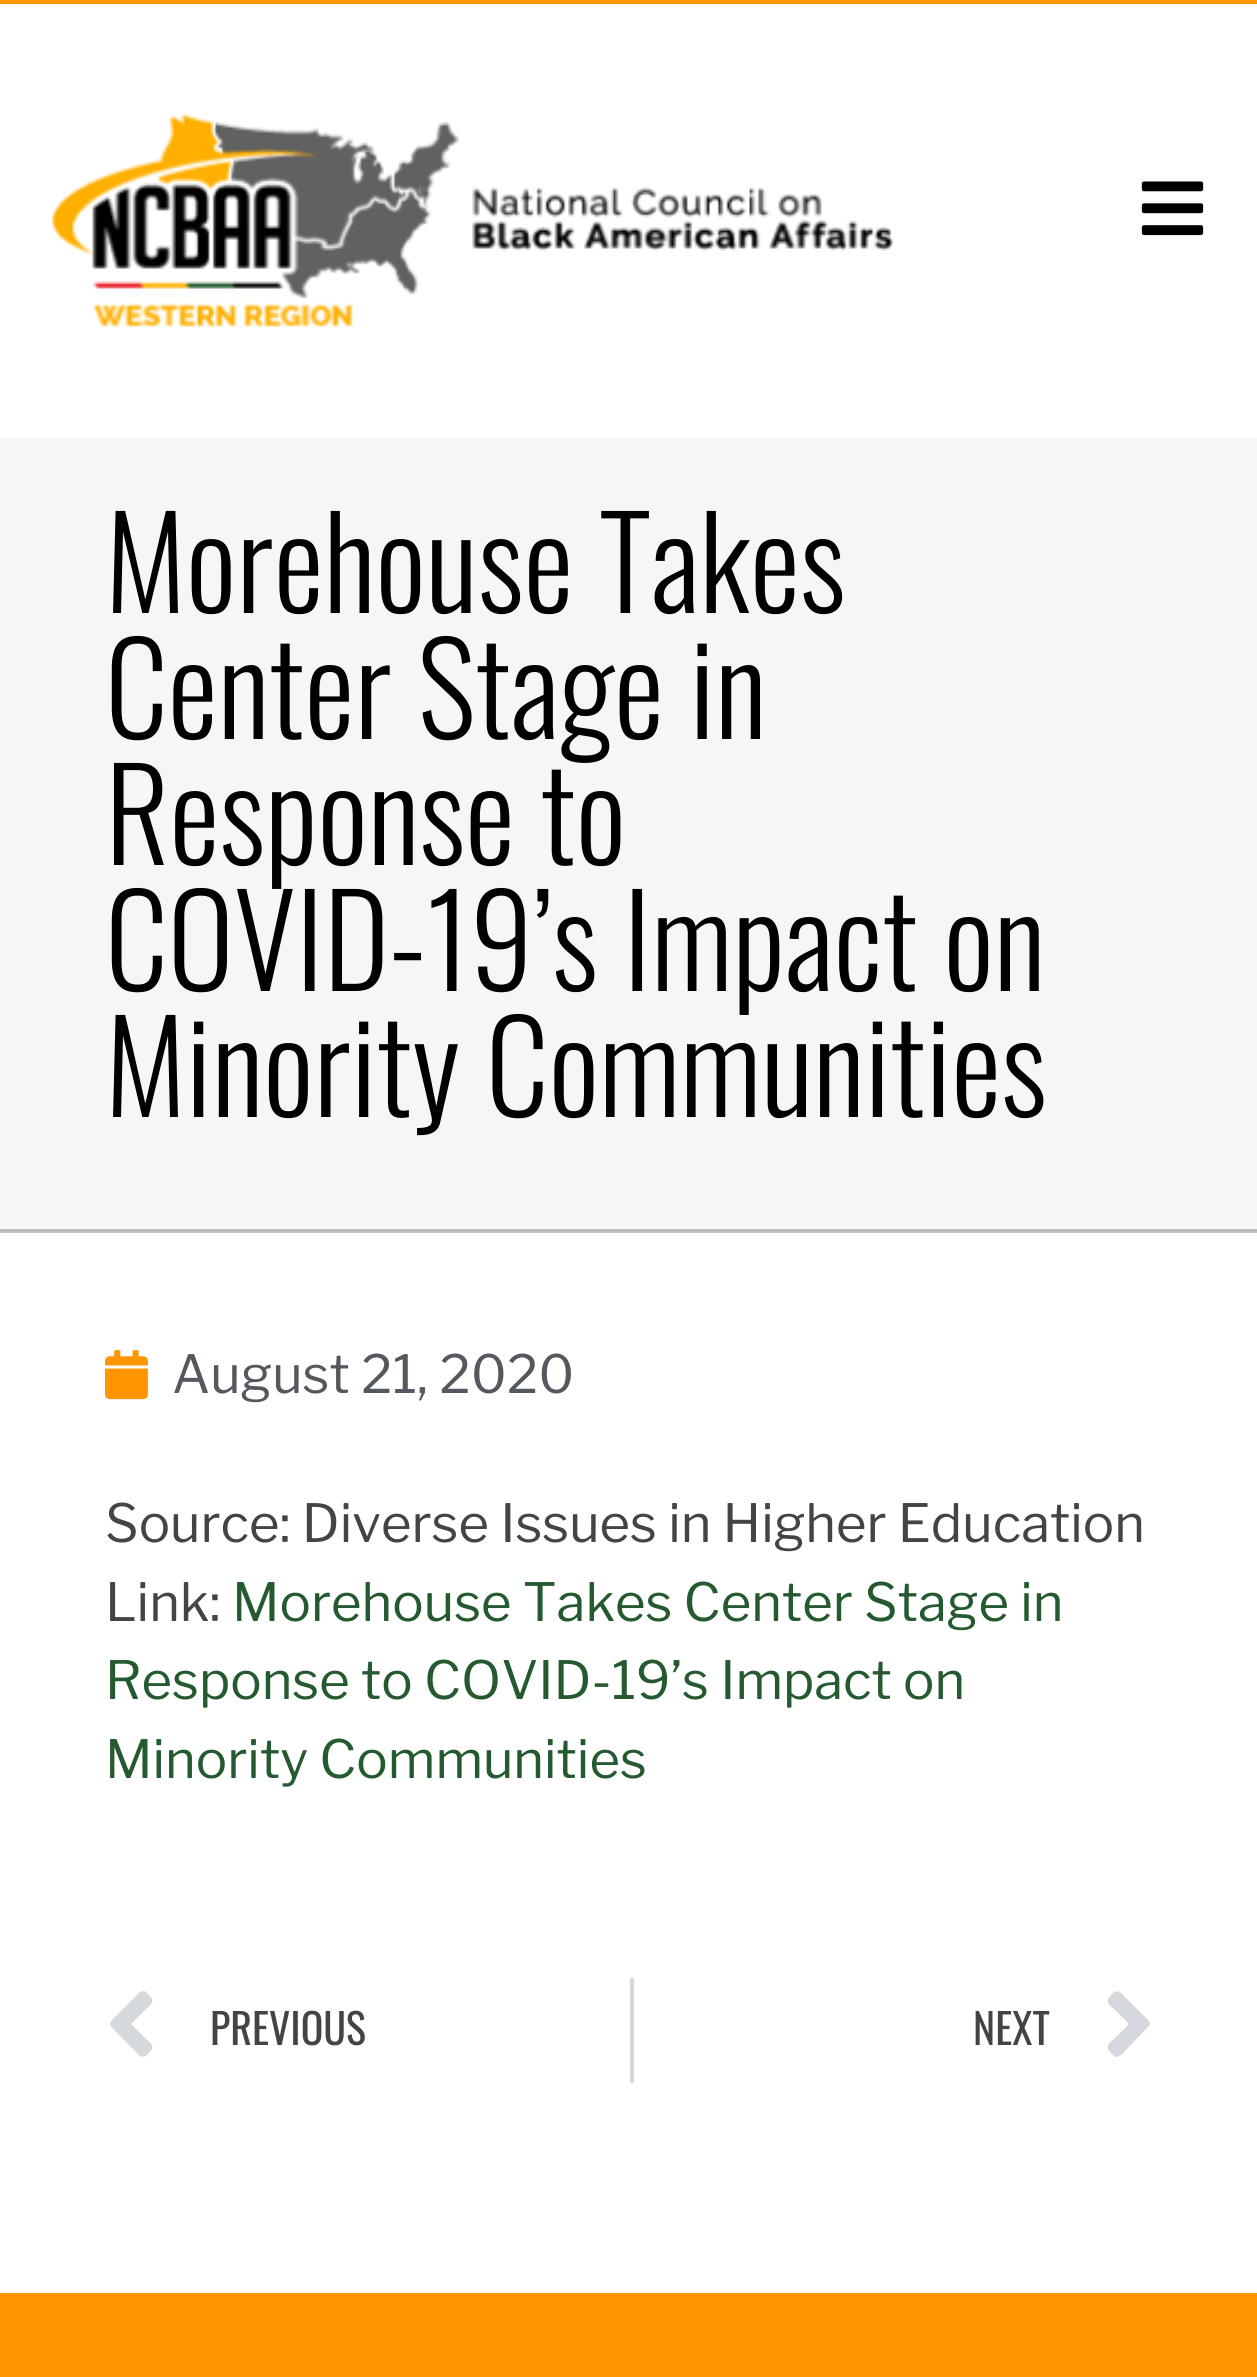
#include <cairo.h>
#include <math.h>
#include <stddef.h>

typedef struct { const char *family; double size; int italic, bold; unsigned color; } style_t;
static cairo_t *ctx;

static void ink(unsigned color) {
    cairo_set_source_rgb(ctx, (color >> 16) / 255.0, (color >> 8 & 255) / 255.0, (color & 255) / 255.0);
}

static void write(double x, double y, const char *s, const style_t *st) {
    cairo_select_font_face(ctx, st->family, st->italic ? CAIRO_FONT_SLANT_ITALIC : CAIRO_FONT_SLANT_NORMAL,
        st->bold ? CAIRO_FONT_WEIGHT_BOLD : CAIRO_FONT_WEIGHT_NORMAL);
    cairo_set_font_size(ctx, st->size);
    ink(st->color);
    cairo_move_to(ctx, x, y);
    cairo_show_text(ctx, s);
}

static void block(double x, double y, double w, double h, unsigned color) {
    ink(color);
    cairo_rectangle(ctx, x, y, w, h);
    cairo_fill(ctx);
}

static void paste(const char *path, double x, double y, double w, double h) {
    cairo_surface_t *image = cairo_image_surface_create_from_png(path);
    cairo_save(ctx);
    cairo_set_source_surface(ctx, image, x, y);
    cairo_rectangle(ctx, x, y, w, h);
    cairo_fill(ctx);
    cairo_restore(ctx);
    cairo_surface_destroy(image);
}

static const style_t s1 = {"Oswald Light", 126, 0, 0, 0x000000};
static const style_t s2 = {"Libre Franklin", 52.5, 0, 0, 0x54595f};
static const style_t s3 = {"Libre Franklin", 52.5, 0, 0, 0x444444};
static const style_t s4 = {"Libre Franklin", 52.5, 0, 0, 0x255a30};
static const style_t s5 = {"Oswald", 42, 0, 0, 0x444444};

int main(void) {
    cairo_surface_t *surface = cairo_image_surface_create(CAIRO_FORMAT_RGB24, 1257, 2377);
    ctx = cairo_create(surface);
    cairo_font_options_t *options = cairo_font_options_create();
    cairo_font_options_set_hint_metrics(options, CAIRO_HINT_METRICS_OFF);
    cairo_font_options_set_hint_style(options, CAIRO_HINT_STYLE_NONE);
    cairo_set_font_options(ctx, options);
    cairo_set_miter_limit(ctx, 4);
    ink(0xffffff);
    cairo_paint(ctx);
    block(0, 1232, 1257, 1, 0xc4c4c4);
    block(0, 0, 1257, 4, 0xff9500);
    paste("pic1.png", 52, 113, 841, 214);
    paste("pic2.png", 1141, 181, 63, 55);
    block(0, 438, 1257, 791, 0xf6f6f6);
    block(0, 1229, 1257, 3, 0xbdbdbd);
    write(105, 613, "Morehouse Takes", &s1);
    write(105, 739, "Center Stage in", &s1);
    write(105, 865, "Response to", &s1);
    write(105, 991, "COVID-19’s Impact on", &s1);
    write(105, 1117, "Minority Communities", &s1);
    paste("pic3.png", 105, 1350, 43, 50);
    write(172, 1393, "August 21, 2020", &s2);
    write(105, 1542, "Source: Diverse Issues in Higher Education", &s3);
    write(105, 1621, "Link:", &s3);
    write(232, 1621, "Morehouse Takes Center Stage in", &s4);
    write(105, 1699, "Response to COVID-19’s Impact on", &s4);
    write(105, 1778, "Minority Communities", &s4);
    ink(0xd5d8dc);
    cairo_new_path(ctx);
    cairo_move_to(ctx, 112, 2020);
    cairo_line_to(ctx, 135, 1997);
    cairo_curve_to(ctx, 137, 1995, 141, 1989, 146, 1992);
    cairo_line_to(ctx, 150, 1996);
    cairo_curve_to(ctx, 156, 2002, 149, 2006, 144, 2011);
    cairo_line_to(ctx, 131, 2024);
    cairo_line_to(ctx, 144, 2037);
    cairo_curve_to(ctx, 147, 2040, 154, 2044, 152, 2049);
    cairo_line_to(ctx, 148, 2054);
    cairo_curve_to(ctx, 142, 2060, 139, 2055, 135, 2051);
    cairo_line_to(ctx, 116, 2032);
    cairo_curve_to(ctx, 114, 2029, 107, 2025, 112, 2020);
    cairo_close_path(ctx);
    cairo_fill(ctx);
    write(210, 2045, "PREVIOUS", &s5);
    block(630, 1978, 4, 105, 0xd5d8dc);
    write(973, 2045, "NEXT", &s5);
    ink(0xd5d8dc);
    cairo_new_path(ctx);
    cairo_move_to(ctx, 1148, 2027);
    cairo_line_to(ctx, 1125, 2051);
    cairo_curve_to(ctx, 1123, 2053, 1119, 2059, 1114, 2056);
    cairo_line_to(ctx, 1110, 2052);
    cairo_curve_to(ctx, 1104, 2045, 1111, 2042, 1116, 2037);
    cairo_line_to(ctx, 1129, 2024);
    cairo_line_to(ctx, 1116, 2011);
    cairo_curve_to(ctx, 1113, 2008, 1106, 2004, 1108, 1999);
    cairo_line_to(ctx, 1112, 1994);
    cairo_curve_to(ctx, 1118, 1988, 1121, 1993, 1125, 1997);
    cairo_line_to(ctx, 1144, 2016);
    cairo_curve_to(ctx, 1146, 2018, 1153, 2023, 1148, 2027);
    cairo_close_path(ctx);
    cairo_fill(ctx);
    block(0, 2293, 1257, 84, 0xff9500);
    cairo_surface_write_to_png(surface, "screenshot.png");
    cairo_font_options_destroy(options);
    cairo_destroy(ctx);
    cairo_surface_destroy(surface);
    return 0;
}
